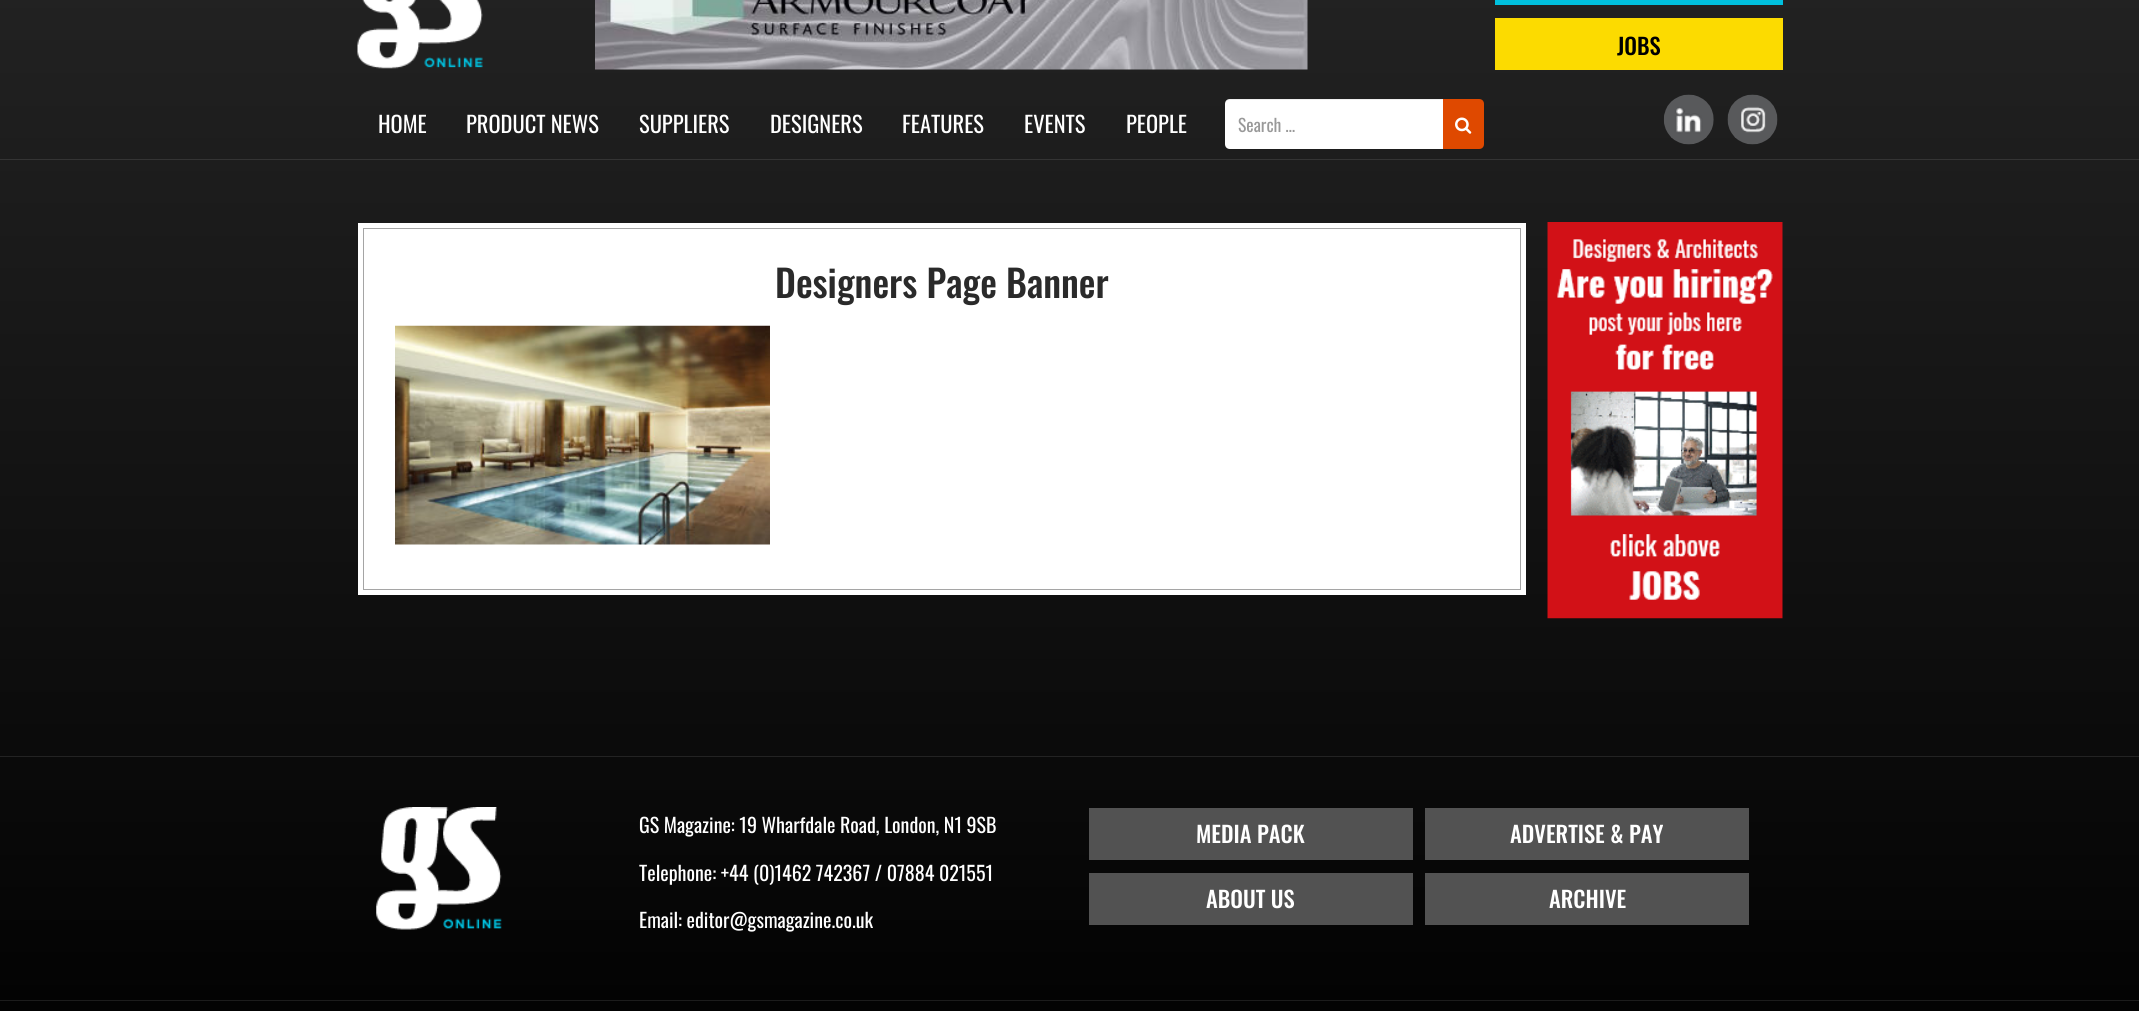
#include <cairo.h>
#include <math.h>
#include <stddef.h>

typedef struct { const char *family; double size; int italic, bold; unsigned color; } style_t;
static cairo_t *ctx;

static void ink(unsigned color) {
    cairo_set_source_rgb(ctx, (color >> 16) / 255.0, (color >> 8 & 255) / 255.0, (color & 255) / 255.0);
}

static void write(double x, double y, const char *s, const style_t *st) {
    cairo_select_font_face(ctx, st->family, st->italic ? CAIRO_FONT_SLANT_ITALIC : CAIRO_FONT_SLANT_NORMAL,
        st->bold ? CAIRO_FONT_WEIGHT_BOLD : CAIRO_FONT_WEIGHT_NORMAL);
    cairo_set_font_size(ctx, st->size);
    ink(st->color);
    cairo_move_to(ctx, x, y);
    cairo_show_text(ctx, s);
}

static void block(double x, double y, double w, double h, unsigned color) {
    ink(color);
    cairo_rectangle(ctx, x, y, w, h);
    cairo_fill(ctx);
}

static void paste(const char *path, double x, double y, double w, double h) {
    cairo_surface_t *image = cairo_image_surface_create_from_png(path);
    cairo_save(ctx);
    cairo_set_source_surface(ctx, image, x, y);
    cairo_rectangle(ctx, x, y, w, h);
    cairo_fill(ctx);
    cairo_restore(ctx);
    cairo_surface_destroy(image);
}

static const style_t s1 = {"Oswald Medium", 22.5, 0, 0, 0x000000};
static const style_t s2 = {"Oswald", 22.5, 0, 0, 0xffffff};
static const style_t s3 = {"Oswald", 17.5, 0, 0, 0x999999};
static const style_t s4 = {"Oswald Medium", 37.5, 0, 0, 0x2a2a2a};
static const style_t s5 = {"Oswald", 20, 0, 0, 0xffffff};
static const style_t s6 = {"Oswald Medium", 22.5, 0, 0, 0xffffff};

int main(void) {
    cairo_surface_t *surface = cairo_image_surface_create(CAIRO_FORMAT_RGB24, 2139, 1011);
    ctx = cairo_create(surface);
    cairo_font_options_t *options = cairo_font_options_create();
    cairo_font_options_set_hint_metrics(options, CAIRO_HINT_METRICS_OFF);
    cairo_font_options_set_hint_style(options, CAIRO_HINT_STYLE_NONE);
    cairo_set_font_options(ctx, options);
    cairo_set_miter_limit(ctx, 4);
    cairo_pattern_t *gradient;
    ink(0xffffff);
    cairo_paint(ctx);
    gradient = cairo_pattern_create_linear(1070, 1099, 1070, -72);
    cairo_pattern_add_color_stop_rgba(gradient, 0, 0, 0, 0, 1);
    cairo_pattern_add_color_stop_rgba(gradient, 1, 0.141, 0.141, 0.141, 1);
    cairo_set_source(ctx, gradient);
    cairo_pattern_destroy(gradient);
    cairo_rectangle(ctx, 0, 0, 2139, 1011);
    cairo_fill(ctx);
    paste("pic1.png", 357, 0, 126, 69);
    paste("pic2.png", 595, 0, 713, 70);
    block(1495, 0, 288, 5, 0x00c0de);
    block(1495, 18, 288, 52, 0xfcdb00);
    write(1617, 55, "JOBS", &s1);
    block(0, 159, 2139, 1, 0x343434);
    write(378, 133, "HOME", &s2);
    write(466, 133, "PRODUCT NEWS", &s2);
    write(639, 133, "SUPPLIERS", &s2);
    write(770, 133, "DESIGNERS", &s2);
    write(902, 133, "FEATURES", &s2);
    write(1024, 133, "EVENTS", &s2);
    write(1126, 133, "PEOPLE", &s2);
    cairo_new_path(ctx);
    cairo_move_to(ctx, 1230, 99);
    cairo_line_to(ctx, 1444, 99);
    cairo_line_to(ctx, 1444, 149);
    cairo_line_to(ctx, 1230, 149);
    cairo_curve_to(ctx, 1227, 149, 1225, 147, 1225, 144);
    cairo_line_to(ctx, 1225, 104);
    cairo_curve_to(ctx, 1225, 101, 1227, 99, 1230, 99);
    cairo_close_path(ctx);
    cairo_fill(ctx);
    cairo_set_source_rgba(ctx, 0, 0, 0, 0.07);
    cairo_new_path(ctx);
    cairo_move_to(ctx, 1230, 100);
    cairo_line_to(ctx, 1444, 100);
    cairo_line_to(ctx, 1444, 99);
    cairo_line_to(ctx, 1230, 99);
    cairo_curve_to(ctx, 1227, 99, 1225, 102, 1225, 105);
    cairo_curve_to(ctx, 1225, 102, 1227, 100, 1230, 100);
    cairo_close_path(ctx);
    cairo_fill(ctx);
    write(1238, 132, "Search …", &s3);
    ink(0xdf4900);
    cairo_new_path(ctx);
    cairo_move_to(ctx, 1443, 99);
    cairo_line_to(ctx, 1479, 99);
    cairo_curve_to(ctx, 1482, 99, 1484, 101, 1484, 104);
    cairo_line_to(ctx, 1484, 144);
    cairo_curve_to(ctx, 1484, 147, 1482, 149, 1479, 149);
    cairo_line_to(ctx, 1443, 149);
    cairo_close_path(ctx);
    cairo_fill(ctx);
    paste("pic3.png", 1455, 117, 17, 17);
    paste("pic4.png", 1663, 94, 51, 51);
    paste("pic5.png", 1727, 94, 51, 51);
    block(358, 223, 1168, 372, 0xffffff);
    paste("pic6.png", 395, 325, 375, 220);
    cairo_rectangle(ctx, 363.5, 228.5, 1157, 361);
    ink(0xa5a5a5);
    cairo_set_line_width(ctx, 1);
    cairo_stroke(ctx);
    write(775, 298, "Designers Page Banner", &s4);
    paste("pic7.png", 1547, 222, 236, 397);
    block(0, 756, 2139, 1, 0x232323);
    block(0, 1000, 2139, 1, 0x1c1c1c);
    paste("pic8.png", 376, 807, 126, 123);
    write(639, 833, "GS Magazine: 19 Wharfdale Road, London, N1 9SB", &s5);
    write(639, 881, "Telephone: +44 (0)1462 742367 / 07884 021551", &s5);
    write(639, 928, "Email: editor@gsmagazine.co.uk", &s5);
    block(1089, 808, 324, 52, 0x525252);
    write(1196, 843, "MEDIA PACK", &s6);
    block(1425, 808, 324, 52, 0x525252);
    write(1510, 843, "ADVERTISE & PAY", &s6);
    block(1089, 873, 324, 52, 0x525252);
    write(1206, 908, "ABOUT US", &s6);
    block(1425, 873, 324, 52, 0x525252);
    write(1549, 908, "ARCHIVE", &s6);
    cairo_surface_write_to_png(surface, "screenshot.png");
    cairo_font_options_destroy(options);
    cairo_destroy(ctx);
    cairo_surface_destroy(surface);
    return 0;
}
